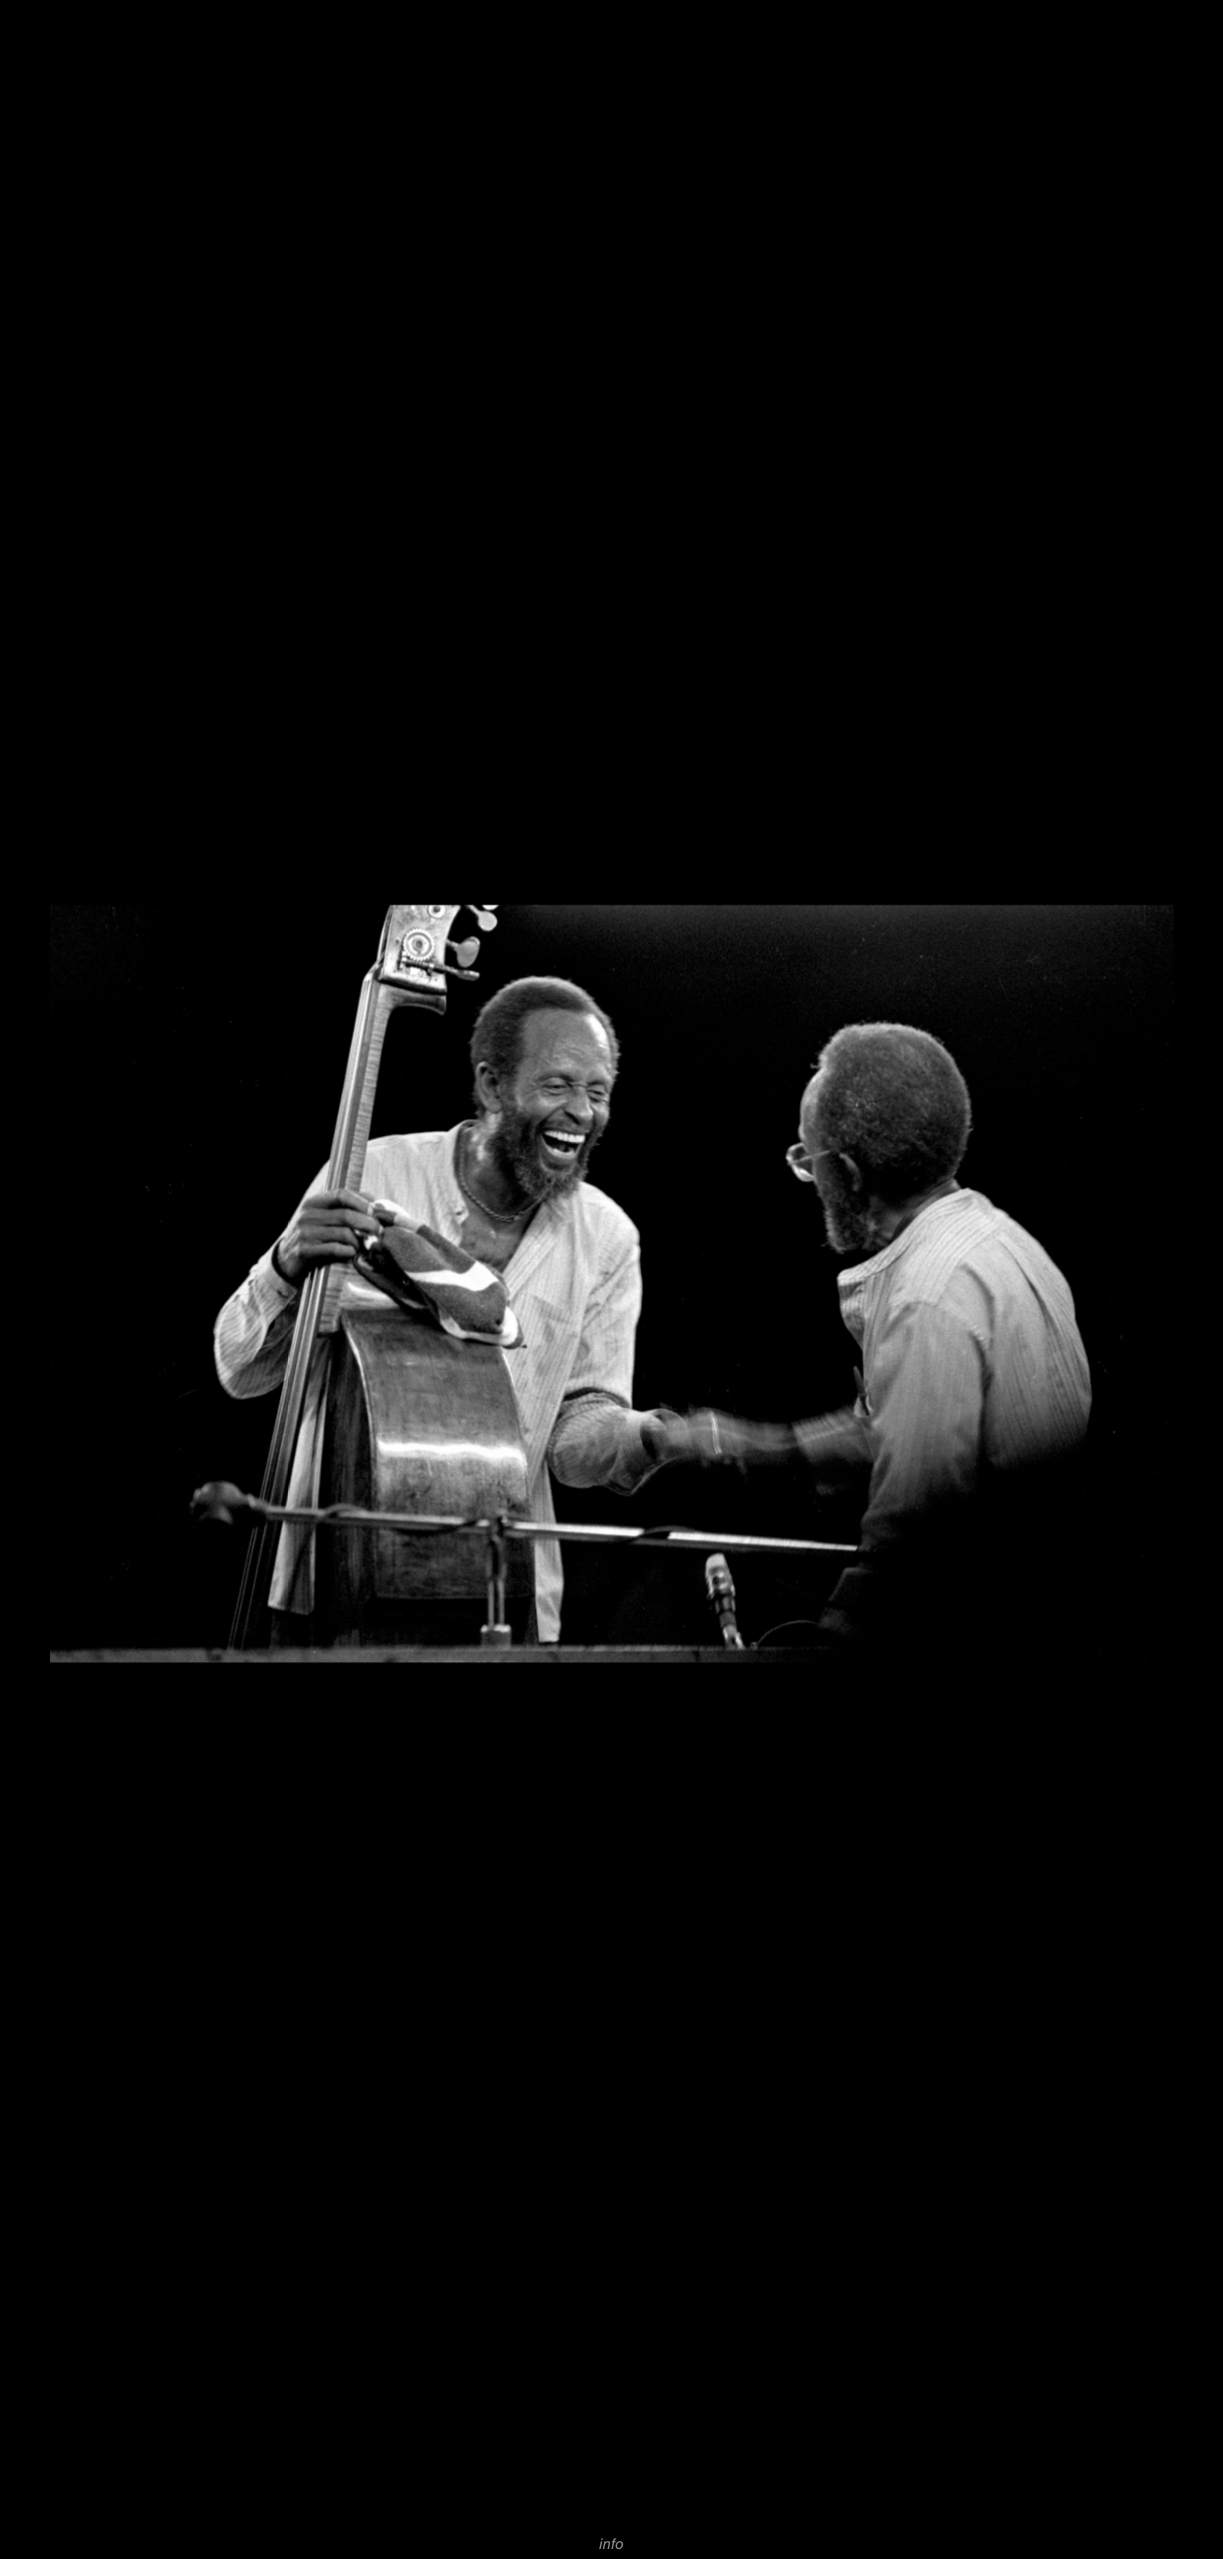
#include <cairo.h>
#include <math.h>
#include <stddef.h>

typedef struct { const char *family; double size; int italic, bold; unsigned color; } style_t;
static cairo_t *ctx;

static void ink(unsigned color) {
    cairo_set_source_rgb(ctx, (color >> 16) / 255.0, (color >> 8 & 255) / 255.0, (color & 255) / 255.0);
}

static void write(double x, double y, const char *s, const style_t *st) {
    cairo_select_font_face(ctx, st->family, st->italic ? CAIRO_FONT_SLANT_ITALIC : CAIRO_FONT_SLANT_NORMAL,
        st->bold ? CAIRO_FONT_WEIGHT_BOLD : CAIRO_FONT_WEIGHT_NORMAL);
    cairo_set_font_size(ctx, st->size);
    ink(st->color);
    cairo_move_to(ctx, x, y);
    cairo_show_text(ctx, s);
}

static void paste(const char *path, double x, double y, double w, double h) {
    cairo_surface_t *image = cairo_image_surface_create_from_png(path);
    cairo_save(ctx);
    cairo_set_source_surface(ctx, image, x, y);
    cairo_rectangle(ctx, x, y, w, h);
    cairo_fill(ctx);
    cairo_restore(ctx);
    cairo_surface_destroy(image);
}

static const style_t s1 = {"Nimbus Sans", 16, 1, 0, 0x888888};

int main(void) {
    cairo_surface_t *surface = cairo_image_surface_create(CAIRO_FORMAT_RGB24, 1223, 2559);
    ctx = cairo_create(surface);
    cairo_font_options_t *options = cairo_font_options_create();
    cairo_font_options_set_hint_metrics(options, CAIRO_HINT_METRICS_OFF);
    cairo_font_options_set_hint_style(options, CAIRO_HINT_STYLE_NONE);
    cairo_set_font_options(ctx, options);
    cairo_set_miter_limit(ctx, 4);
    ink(0x000000);
    cairo_paint(ctx);
    paste("pic1.png", 50, 904, 1124, 760);
    write(599, 2549, "info", &s1);
    cairo_surface_write_to_png(surface, "screenshot.png");
    cairo_font_options_destroy(options);
    cairo_destroy(ctx);
    cairo_surface_destroy(surface);
    return 0;
}
